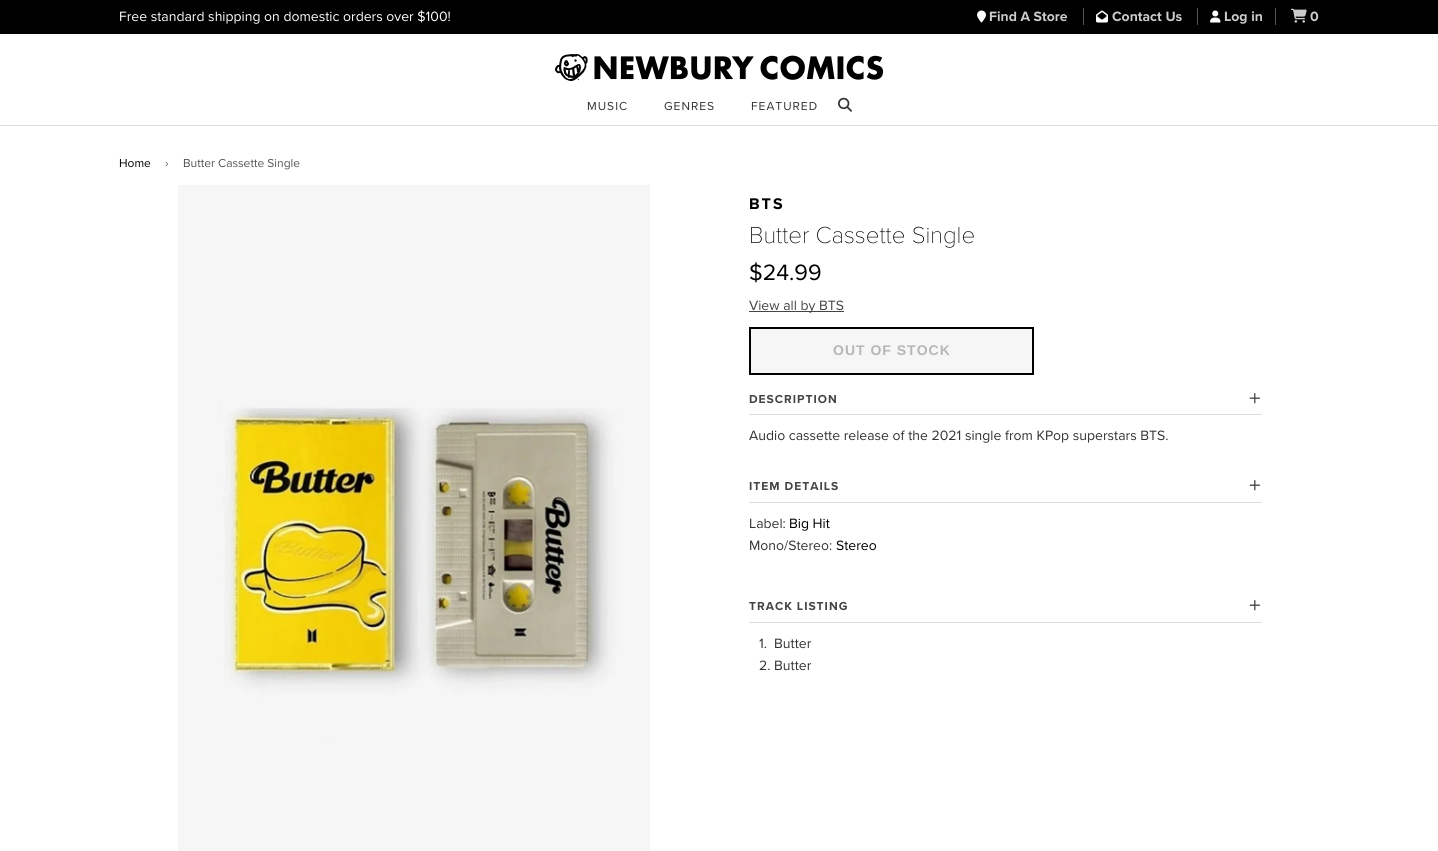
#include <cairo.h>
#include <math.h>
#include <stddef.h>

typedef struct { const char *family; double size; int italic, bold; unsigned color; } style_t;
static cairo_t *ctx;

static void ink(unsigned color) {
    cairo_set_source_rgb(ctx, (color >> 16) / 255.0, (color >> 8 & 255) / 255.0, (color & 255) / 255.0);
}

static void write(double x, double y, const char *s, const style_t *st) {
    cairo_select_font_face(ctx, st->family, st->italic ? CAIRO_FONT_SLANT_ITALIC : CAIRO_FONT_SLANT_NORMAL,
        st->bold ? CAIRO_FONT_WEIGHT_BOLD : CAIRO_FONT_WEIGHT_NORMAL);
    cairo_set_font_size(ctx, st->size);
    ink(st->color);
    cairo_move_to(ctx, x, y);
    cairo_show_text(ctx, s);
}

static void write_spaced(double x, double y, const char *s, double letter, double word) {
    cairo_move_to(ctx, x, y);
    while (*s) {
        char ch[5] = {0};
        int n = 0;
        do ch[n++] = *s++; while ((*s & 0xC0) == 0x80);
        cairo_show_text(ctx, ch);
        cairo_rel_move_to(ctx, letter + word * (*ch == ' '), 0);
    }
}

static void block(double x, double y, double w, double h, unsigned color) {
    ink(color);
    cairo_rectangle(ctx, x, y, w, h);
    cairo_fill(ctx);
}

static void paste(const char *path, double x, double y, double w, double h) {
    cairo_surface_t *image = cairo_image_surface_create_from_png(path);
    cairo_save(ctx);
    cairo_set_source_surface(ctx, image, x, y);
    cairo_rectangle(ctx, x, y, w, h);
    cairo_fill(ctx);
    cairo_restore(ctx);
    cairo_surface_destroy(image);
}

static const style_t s1 = {"Proxima Nova", 14, 0, 0, 0xffffff};
static const style_t s2 = {"Proxima Nova", 14, 0, 1, 0xcccccc};
static const style_t s3 = {"Proxima Nova", 12, 0, 0, 0x000000};
static const style_t s4 = {"Proxima Nova", 12, 0, 0, 0x555555};
static const style_t s5 = {"Proxima Nova Thin", 24, 0, 0, 0x000000};
static const style_t s6 = {"Proxima Nova", 23, 0, 0, 0x000000};
static const style_t s7 = {"Proxima Nova", 14, 0, 0, 0x444444};
static const style_t s8 = {"Proxima Nova", 14, 0, 0, 0x333333};
static const style_t s9 = {"Proxima Nova", 14, 0, 0, 0x000000};

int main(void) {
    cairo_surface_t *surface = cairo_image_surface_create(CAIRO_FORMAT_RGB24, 1438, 851);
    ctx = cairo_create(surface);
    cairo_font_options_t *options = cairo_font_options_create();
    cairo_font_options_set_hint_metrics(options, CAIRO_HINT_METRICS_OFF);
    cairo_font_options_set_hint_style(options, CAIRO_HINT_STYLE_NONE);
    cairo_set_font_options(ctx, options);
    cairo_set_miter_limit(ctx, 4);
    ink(0xffffff);
    cairo_paint(ctx);
    block(0, 0, 1438, 34, 0x000000);
    write(119, 21, "Free standard shipping on domestic orders over $100!", &s1);
    paste("pic1.png", 977, 10, 9, 13);
    write(989, 21, "Find A Store", &s2);
    block(1083, 8, 1, 17, 0x555555);
    paste("pic2.png", 1096, 10, 12, 13);
    write(1112, 21, "Contact Us", &s2);
    block(1197, 8, 1, 17, 0x555555);
    paste("pic3.png", 1210, 10, 11, 13);
    write(1224, 21, "Log in", &s2);
    block(1275, 8, 1, 17, 0x555555);
    paste("pic4.png", 1291, 8, 16, 15);
    write(1310, 21, "0", &s2);
    paste("pic5.png", 555, 54, 328, 27);
    block(0, 125, 1438, 1, 0xdddddd);
    cairo_select_font_face(ctx, "Proxima Nova", CAIRO_FONT_SLANT_NORMAL, CAIRO_FONT_WEIGHT_NORMAL);
    cairo_set_font_size(ctx, 12);
    ink(0x333333);
    write_spaced(587, 110, "MUSIC", 1, 0);
    write_spaced(664, 110, "GENRES", 1, 0);
    write_spaced(751, 110, "FEATURED", 1, 0);
    paste("pic6.png", 838, 97, 14, 15);
    write(119, 167, "Home", &s3);
    write(165, 167, "›", &s4);
    write(183, 167, "Butter Cassette Single", &s4);
    paste("pic7.png", 178, 185, 472, 666);
    cairo_select_font_face(ctx, "Proxima Nova", CAIRO_FONT_SLANT_NORMAL, CAIRO_FONT_WEIGHT_BOLD);
    cairo_set_font_size(ctx, 16);
    ink(0x000000);
    write_spaced(749, 209, "BTS", 2, 0);
    write(749, 243, "Butter Cassette Single", &s5);
    write(749, 280, "$24.99", &s6);
    block(749, 311, 95, 1, 0x444444);
    write(749, 310, "View all by BTS", &s7);
    ink(0xf6f6f6);
    cairo_rectangle(ctx, 750, 328, 283, 46);
    cairo_fill_preserve(ctx);
    ink(0x000000);
    cairo_stroke(ctx);
    cairo_select_font_face(ctx, "Liberation Sans", CAIRO_FONT_SLANT_NORMAL, CAIRO_FONT_WEIGHT_BOLD);
    ink(0xb6b6b6);
    write_spaced(833, 355, "OUT OF STOCK", 1, 0);
    block(749, 414, 513, 1, 0xdddddd);
    cairo_select_font_face(ctx, "Proxima Nova", CAIRO_FONT_SLANT_NORMAL, CAIRO_FONT_WEIGHT_BOLD);
    cairo_set_font_size(ctx, 12);
    ink(0x444444);
    write_spaced(749, 403, "DESCRIPTION", 1, 0);
    paste("pic8.png", 1249, 393, 11, 11);
    write(749, 440, "Audio cassette release of the 2021 single from KPop superstars BTS.", &s8);
    block(749, 502, 513, 1, 0xdddddd);
    cairo_select_font_face(ctx, "Proxima Nova", CAIRO_FONT_SLANT_NORMAL, CAIRO_FONT_WEIGHT_BOLD);
    cairo_set_font_size(ctx, 12);
    ink(0x444444);
    write_spaced(749, 490, "ITEM DETAILS", 1, 0);
    paste("pic8.png", 1249, 480, 11, 11);
    write(749, 528, "Label:", &s8);
    write(789, 528, "Big Hit", &s9);
    write(749, 550, "Mono/Stereo:", &s8);
    write(836, 550, "Stereo", &s9);
    block(749, 622, 513, 1, 0xdddddd);
    cairo_select_font_face(ctx, "Proxima Nova", CAIRO_FONT_SLANT_NORMAL, CAIRO_FONT_WEIGHT_BOLD);
    cairo_set_font_size(ctx, 12);
    ink(0x444444);
    write_spaced(749, 610, "TRACK LISTING", 1, 0);
    paste("pic8.png", 1249, 600, 11, 11);
    write(759, 648, "1.", &s8);
    write(774, 648, "Butter", &s8);
    write(759, 670, "2. Butter", &s8);
    cairo_surface_write_to_png(surface, "screenshot.png");
    cairo_font_options_destroy(options);
    cairo_destroy(ctx);
    cairo_surface_destroy(surface);
    return 0;
}
